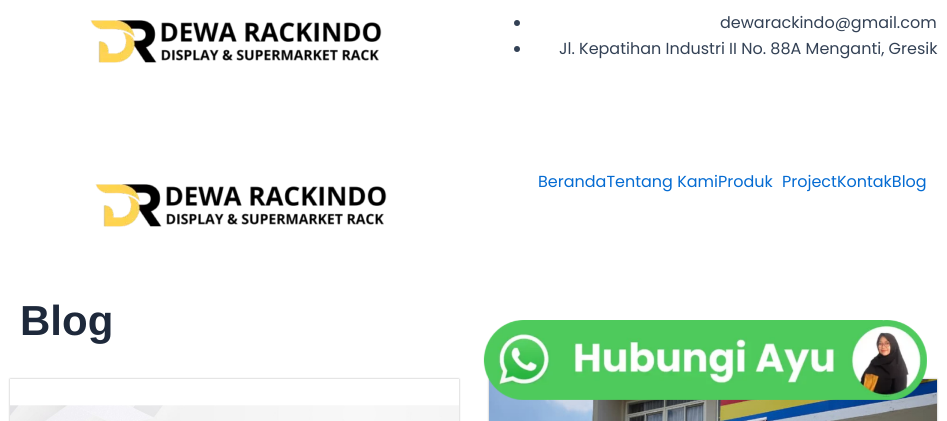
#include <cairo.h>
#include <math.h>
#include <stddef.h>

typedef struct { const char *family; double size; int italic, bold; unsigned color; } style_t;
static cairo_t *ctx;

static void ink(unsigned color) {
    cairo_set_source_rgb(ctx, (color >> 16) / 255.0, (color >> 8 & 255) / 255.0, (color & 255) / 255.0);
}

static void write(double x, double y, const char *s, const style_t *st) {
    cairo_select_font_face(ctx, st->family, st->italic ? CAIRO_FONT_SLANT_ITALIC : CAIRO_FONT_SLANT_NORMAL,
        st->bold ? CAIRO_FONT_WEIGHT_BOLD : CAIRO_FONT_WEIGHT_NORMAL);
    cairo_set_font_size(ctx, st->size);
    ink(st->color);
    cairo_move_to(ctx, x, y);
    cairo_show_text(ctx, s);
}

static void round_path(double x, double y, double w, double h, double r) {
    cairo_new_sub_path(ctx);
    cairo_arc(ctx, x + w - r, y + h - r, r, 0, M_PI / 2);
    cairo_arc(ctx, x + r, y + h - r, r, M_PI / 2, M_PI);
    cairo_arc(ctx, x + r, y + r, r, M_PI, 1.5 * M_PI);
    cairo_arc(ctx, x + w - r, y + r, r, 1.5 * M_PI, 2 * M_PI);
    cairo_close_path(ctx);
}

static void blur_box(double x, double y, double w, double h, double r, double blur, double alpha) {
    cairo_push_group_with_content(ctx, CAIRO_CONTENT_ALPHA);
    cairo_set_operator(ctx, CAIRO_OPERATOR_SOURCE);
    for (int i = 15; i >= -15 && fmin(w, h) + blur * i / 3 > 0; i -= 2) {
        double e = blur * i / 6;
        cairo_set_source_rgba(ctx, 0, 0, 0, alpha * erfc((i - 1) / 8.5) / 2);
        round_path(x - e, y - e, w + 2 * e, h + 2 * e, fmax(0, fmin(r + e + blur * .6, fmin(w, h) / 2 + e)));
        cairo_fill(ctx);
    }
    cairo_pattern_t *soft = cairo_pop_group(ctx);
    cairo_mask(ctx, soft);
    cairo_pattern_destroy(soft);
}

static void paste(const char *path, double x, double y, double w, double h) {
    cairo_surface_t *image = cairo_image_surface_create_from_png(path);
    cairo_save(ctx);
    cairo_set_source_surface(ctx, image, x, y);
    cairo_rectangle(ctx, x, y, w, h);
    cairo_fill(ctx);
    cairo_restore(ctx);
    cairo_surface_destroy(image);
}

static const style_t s1 = {"Poppins", 16, 0, 0, 0x334155};
static const style_t s2 = {"Poppins", 16, 0, 0, 0x046bd2};
static const style_t s3 = {"Liberation Sans", 42, 0, 1, 0x1e293b};

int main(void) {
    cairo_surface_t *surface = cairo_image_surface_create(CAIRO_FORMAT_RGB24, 947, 421);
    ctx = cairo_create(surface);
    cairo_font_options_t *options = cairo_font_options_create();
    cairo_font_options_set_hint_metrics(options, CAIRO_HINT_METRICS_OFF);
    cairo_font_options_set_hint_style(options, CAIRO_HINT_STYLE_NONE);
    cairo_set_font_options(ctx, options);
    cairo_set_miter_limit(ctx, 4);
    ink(0xffffff);
    cairo_paint(ctx);
    paste("pic1.png", 90, 20, 292, 43);
    ink(0x334155);
    cairo_arc(ctx, 517, 23, 3, 0, 2 * M_PI);
    cairo_fill(ctx);
    write(720, 28, "dewarackindo@gmail.com", &s1);
    cairo_new_path(ctx);
    cairo_arc(ctx, 517, 49, 3, 0, 2 * M_PI);
    cairo_fill(ctx);
    write(559, 54, "Jl. Kepatihan Industri II No. 88A Menganti, Gresik", &s1);
    paste("pic1.png", 95, 184, 292, 43);
    write(538, 187, "BerandaTentang KamiProduk", &s2);
    write(782, 187, "ProjectKontakBlog", &s2);
    write(20, 335, "Blog", &s3);
    cairo_save(ctx);
    cairo_set_fill_rule(ctx, CAIRO_FILL_RULE_EVEN_ODD);
    cairo_new_path(ctx);
    cairo_move_to(ctx, 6, 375);
    cairo_line_to(ctx, 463, 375);
    cairo_line_to(ctx, 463, 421);
    cairo_line_to(ctx, 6, 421);
    cairo_close_path(ctx);
    cairo_move_to(ctx, 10, 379);
    cairo_line_to(ctx, 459, 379);
    cairo_line_to(ctx, 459, 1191);
    cairo_line_to(ctx, 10, 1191);
    cairo_close_path(ctx);
    cairo_clip(ctx);
    ink(0x000000);
    blur_box(10, 379, 449, 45, 0, 1, 0.3);
    cairo_restore(ctx);
    paste("pic2.png", 10, 405, 449, 16);
    ink(0x000000);
    blur_box(489, 379, 448, 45, 0, 1, 0.3);
    paste("pic3.png", 489, 379, 448, 42);
    paste("pic4.png", 483, 320, 444, 80);
    cairo_surface_write_to_png(surface, "screenshot.png");
    cairo_font_options_destroy(options);
    cairo_destroy(ctx);
    cairo_surface_destroy(surface);
    return 0;
}
